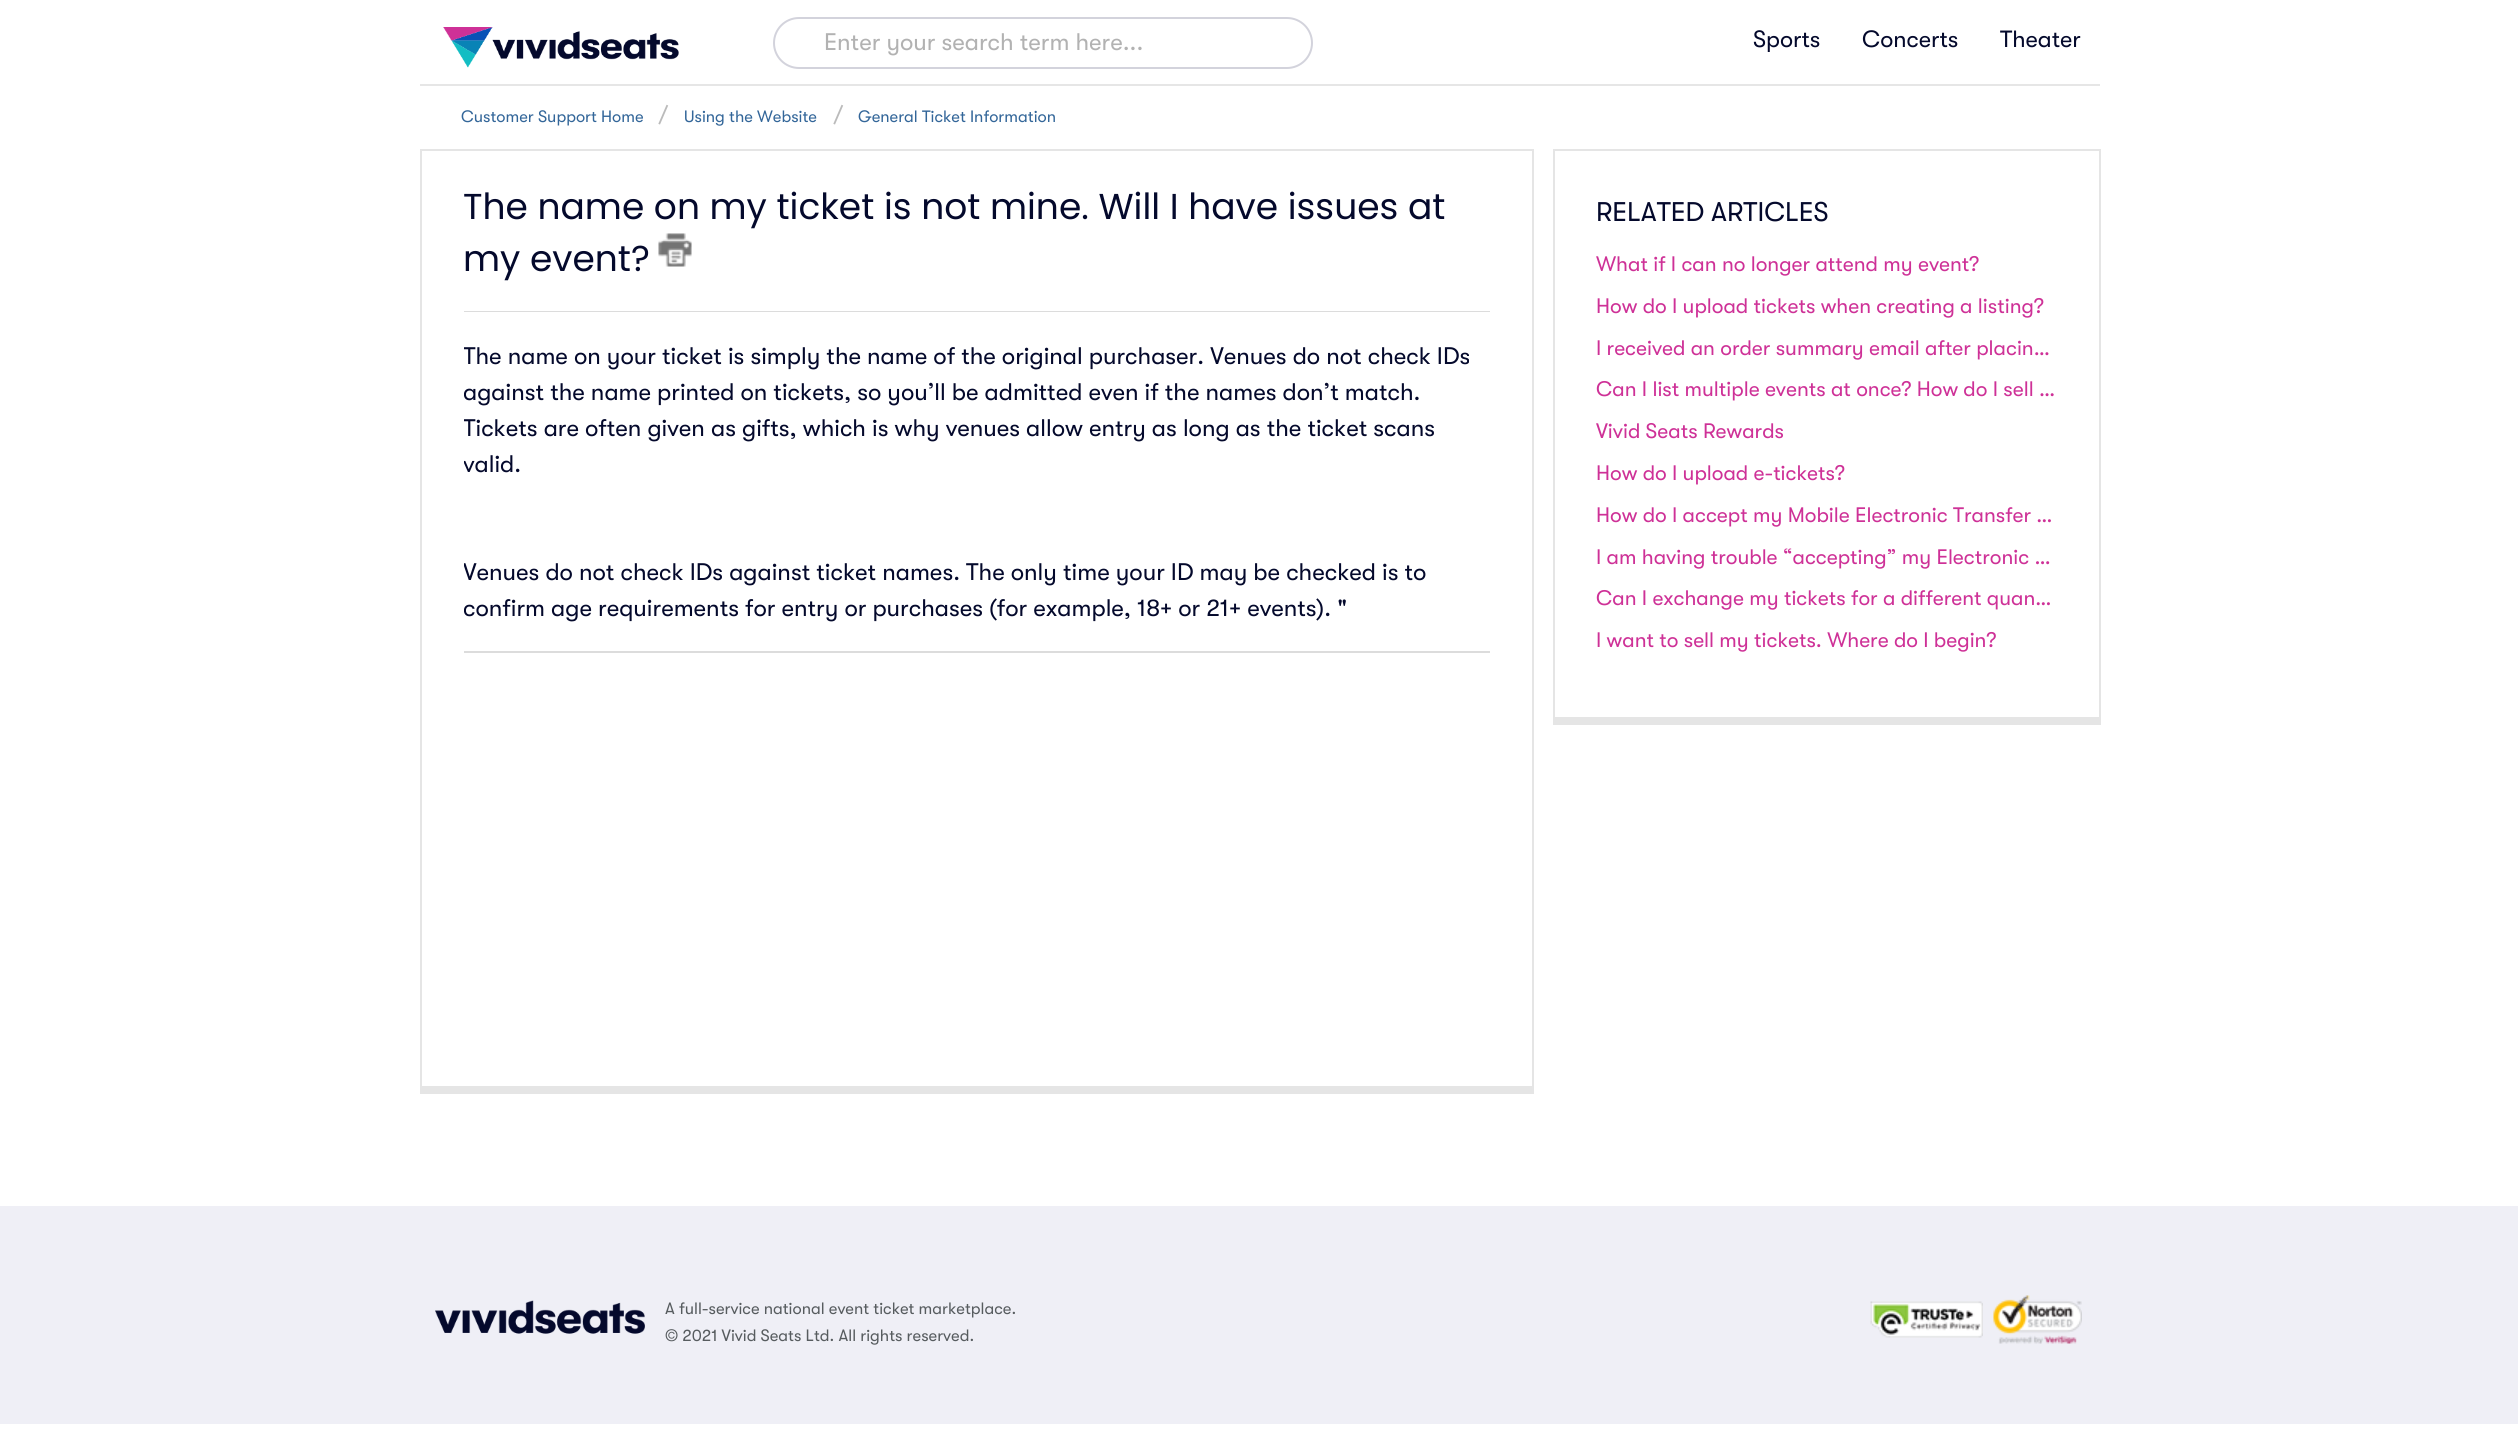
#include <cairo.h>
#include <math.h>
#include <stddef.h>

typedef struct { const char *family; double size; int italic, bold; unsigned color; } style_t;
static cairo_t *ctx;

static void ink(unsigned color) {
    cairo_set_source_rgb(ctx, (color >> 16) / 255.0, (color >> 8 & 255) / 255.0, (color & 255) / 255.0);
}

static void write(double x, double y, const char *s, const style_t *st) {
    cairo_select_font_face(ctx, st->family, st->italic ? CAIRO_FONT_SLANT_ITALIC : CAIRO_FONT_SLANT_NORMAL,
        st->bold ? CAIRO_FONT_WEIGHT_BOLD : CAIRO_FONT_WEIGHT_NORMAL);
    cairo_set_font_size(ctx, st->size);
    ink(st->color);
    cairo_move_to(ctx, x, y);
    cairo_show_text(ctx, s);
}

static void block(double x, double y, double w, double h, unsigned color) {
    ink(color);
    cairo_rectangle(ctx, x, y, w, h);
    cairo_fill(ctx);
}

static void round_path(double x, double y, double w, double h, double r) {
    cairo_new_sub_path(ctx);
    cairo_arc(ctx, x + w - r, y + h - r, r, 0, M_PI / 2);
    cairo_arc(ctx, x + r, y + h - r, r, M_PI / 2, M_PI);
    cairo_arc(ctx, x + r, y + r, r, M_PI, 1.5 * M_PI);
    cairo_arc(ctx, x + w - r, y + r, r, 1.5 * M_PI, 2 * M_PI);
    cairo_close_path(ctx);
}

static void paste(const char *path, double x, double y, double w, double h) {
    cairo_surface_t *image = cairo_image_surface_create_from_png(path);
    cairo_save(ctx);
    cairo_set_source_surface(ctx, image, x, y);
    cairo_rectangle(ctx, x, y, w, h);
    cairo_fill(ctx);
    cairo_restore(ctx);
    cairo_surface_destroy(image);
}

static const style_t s1 = {"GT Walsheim", 24, 0, 0, 0xb2b2b2};
static const style_t s2 = {"GT Walsheim", 23.5, 0, 0, 0x04092c};
static const style_t s3 = {"GT Walsheim", 16.5, 0, 0, 0x336699};
static const style_t s4 = {"GT Walsheim", 24, 0, 0, 0xbbbbbb};
static const style_t s5 = {"Poppins", 36, 0, 0, 0x04092c};
static const style_t s6 = {"GT Walsheim", 24, 0, 0, 0x04092c};
static const style_t s7 = {"GT Walsheim", 27, 0, 0, 0x04092c};
static const style_t s8 = {"GT Walsheim", 21, 0, 0, 0xce3197};
static const style_t s9 = {"GT Walsheim", 16.5, 0, 0, 0x575c5f};

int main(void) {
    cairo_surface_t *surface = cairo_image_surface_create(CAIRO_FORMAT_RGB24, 2518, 1437);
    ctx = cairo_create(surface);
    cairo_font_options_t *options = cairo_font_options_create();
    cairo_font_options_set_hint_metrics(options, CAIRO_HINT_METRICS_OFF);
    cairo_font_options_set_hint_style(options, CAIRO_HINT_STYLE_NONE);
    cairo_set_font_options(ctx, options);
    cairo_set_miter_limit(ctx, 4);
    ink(0xffffff);
    cairo_paint(ctx);
    block(420, 84, 1680, 2, 0xe6e6e6);
    paste("pic1.png", 443, 27, 236, 41);
    round_path(774, 18, 538, 50, 25);
    ink(0xd3d3dc);
    cairo_stroke(ctx);
    write(824, 50, "Enter your search term here...", &s1);
    write(1753, 47, "Sports", &s2);
    write(1862, 47, "Concerts", &s2);
    write(2000, 47, "Theater", &s2);
    write(461, 122, "Customer Support Home", &s3);
    write(658, 123, "/", &s4);
    write(684, 122, "Using the Website", &s3);
    write(833, 123, "/", &s4);
    write(858, 122, "General Ticket Information", &s3);
    block(420, 149, 1113, 2, 0xe5e5e5);
    block(1532, 149, 2, 945, 0xe5e5e5);
    block(420, 1086, 1113, 8, 0xe5e5e5);
    block(420, 149, 2, 945, 0xe5e5e5);
    write(463, 219, "The name on my ticket is not mine. Will I have issues at", &s5);
    write(463, 271, "my event?", &s5);
    paste("pic2.png", 658, 233, 34, 34);
    block(464, 311, 1026, 1, 0xdcdcdc);
    cairo_save(ctx);
    cairo_rectangle(ctx, 464, 339, 1026, 288);
    cairo_clip(ctx);
    write(463, 364, "The name on your ticket is simply the name of the original purchaser. Venues do not check IDs", &s6);
    write(463, 400, "against the name printed on tickets, so you’ll be admitted even if the names don’t match.", &s6);
    write(463, 436, "Tickets are often given as gifts, which is why venues allow entry as long as the ticket scans", &s6);
    write(463, 472, "valid.", &s6);
    write(463, 580, "Venues do not check IDs against ticket names. The only time your ID may be checked is to", &s6);
    write(463, 616, "confirm age requirements for entry or purchases (for example, 18+ or 21+ events). \"", &s6);
    cairo_restore(ctx);
    block(464, 651, 1026, 2, 0xdcdcdc);
    block(1553, 149, 547, 2, 0xe5e5e5);
    block(2099, 149, 2, 576, 0xe5e5e5);
    block(1553, 717, 547, 8, 0xe5e5e5);
    block(1553, 149, 2, 576, 0xe5e5e5);
    write(1596, 221, "RELATED ARTICLES", &s7);
    write(1596, 271, "What if I can no longer attend my event?", &s8);
    write(1596, 313, "How do I upload tickets when creating a listing?", &s8);
    write(1596, 355, "I received an order summary email after placin…", &s8);
    write(1596, 396, "Can I list multiple events at once? How do I sell …", &s8);
    write(1596, 438, "Vivid Seats Rewards", &s8);
    write(1596, 480, "How do I upload e-tickets?", &s8);
    write(1596, 522, "How do I accept my Mobile Electronic Transfer …", &s8);
    write(1596, 564, "I am having trouble “accepting” my Electronic …", &s8);
    write(1596, 605, "Can I exchange my tickets for a different quan…", &s8);
    write(1596, 647, "I want to sell my tickets. Where do I begin?", &s8);
    block(0, 1206, 2518, 218, 0xefeff6);
    paste("pic3.png", 435, 1300, 210, 34);
    write(665, 1314, "A full-service national event ticket marketplace.", &s9);
    write(665, 1341, "© 2021 Vivid Seats Ltd. All rights reserved.", &s9);
    paste("pic4.png", 1870, 1301, 113, 37);
    paste("pic5.png", 1993, 1295, 89, 49);
    cairo_surface_write_to_png(surface, "screenshot.png");
    cairo_font_options_destroy(options);
    cairo_destroy(ctx);
    cairo_surface_destroy(surface);
    return 0;
}
